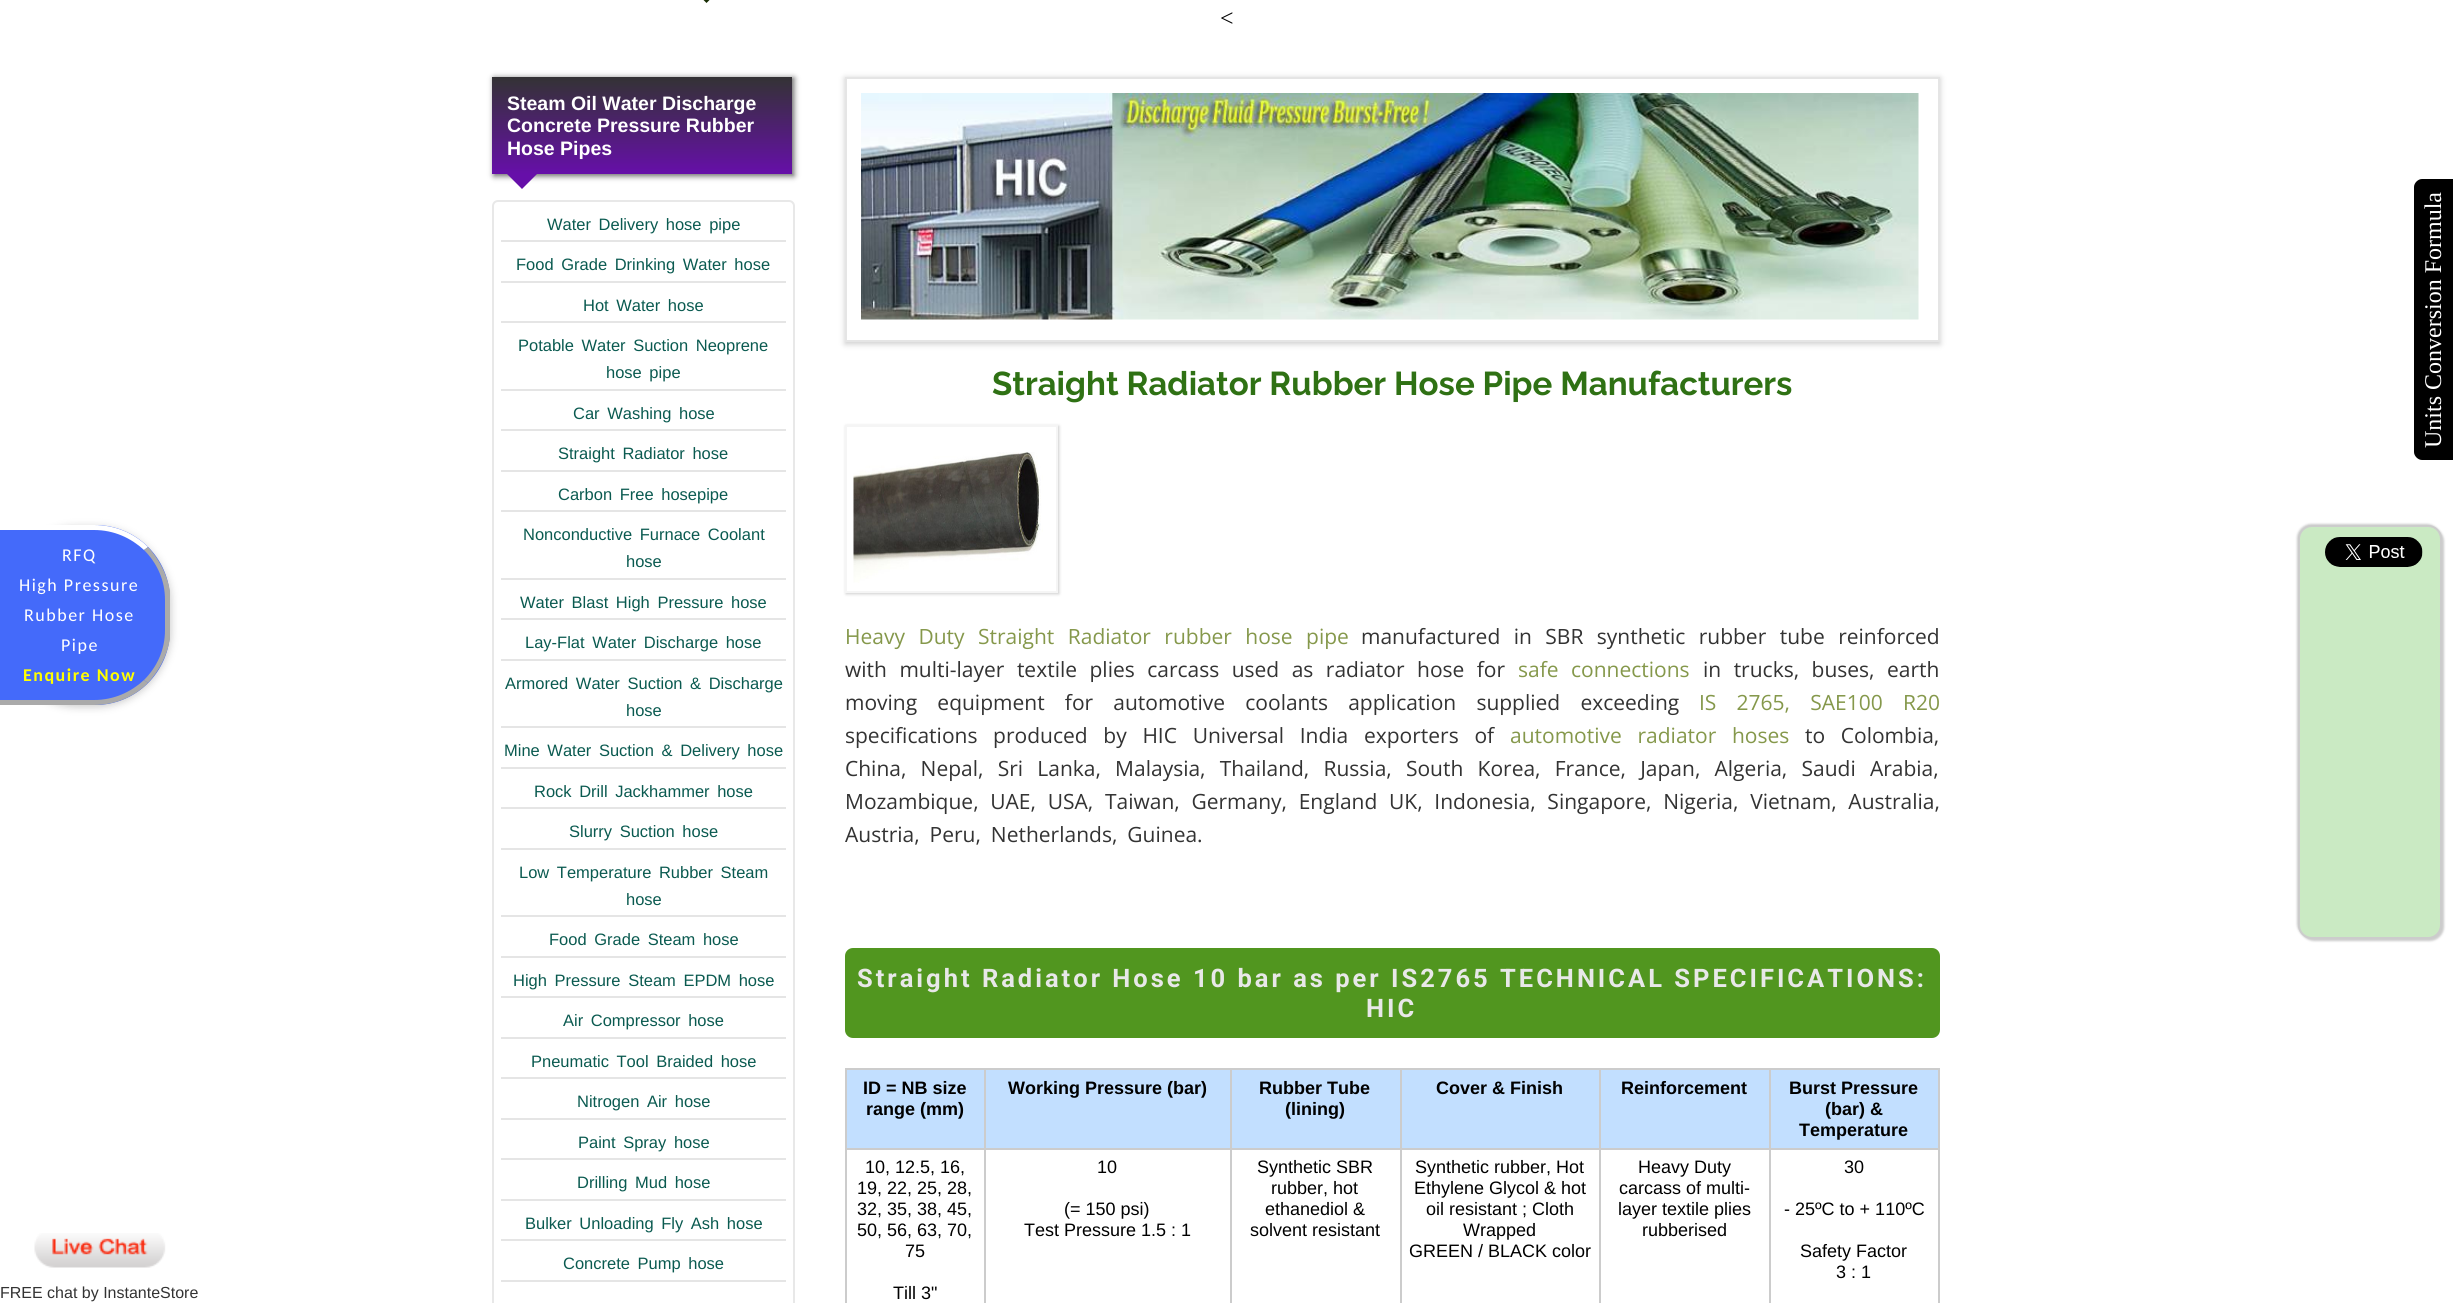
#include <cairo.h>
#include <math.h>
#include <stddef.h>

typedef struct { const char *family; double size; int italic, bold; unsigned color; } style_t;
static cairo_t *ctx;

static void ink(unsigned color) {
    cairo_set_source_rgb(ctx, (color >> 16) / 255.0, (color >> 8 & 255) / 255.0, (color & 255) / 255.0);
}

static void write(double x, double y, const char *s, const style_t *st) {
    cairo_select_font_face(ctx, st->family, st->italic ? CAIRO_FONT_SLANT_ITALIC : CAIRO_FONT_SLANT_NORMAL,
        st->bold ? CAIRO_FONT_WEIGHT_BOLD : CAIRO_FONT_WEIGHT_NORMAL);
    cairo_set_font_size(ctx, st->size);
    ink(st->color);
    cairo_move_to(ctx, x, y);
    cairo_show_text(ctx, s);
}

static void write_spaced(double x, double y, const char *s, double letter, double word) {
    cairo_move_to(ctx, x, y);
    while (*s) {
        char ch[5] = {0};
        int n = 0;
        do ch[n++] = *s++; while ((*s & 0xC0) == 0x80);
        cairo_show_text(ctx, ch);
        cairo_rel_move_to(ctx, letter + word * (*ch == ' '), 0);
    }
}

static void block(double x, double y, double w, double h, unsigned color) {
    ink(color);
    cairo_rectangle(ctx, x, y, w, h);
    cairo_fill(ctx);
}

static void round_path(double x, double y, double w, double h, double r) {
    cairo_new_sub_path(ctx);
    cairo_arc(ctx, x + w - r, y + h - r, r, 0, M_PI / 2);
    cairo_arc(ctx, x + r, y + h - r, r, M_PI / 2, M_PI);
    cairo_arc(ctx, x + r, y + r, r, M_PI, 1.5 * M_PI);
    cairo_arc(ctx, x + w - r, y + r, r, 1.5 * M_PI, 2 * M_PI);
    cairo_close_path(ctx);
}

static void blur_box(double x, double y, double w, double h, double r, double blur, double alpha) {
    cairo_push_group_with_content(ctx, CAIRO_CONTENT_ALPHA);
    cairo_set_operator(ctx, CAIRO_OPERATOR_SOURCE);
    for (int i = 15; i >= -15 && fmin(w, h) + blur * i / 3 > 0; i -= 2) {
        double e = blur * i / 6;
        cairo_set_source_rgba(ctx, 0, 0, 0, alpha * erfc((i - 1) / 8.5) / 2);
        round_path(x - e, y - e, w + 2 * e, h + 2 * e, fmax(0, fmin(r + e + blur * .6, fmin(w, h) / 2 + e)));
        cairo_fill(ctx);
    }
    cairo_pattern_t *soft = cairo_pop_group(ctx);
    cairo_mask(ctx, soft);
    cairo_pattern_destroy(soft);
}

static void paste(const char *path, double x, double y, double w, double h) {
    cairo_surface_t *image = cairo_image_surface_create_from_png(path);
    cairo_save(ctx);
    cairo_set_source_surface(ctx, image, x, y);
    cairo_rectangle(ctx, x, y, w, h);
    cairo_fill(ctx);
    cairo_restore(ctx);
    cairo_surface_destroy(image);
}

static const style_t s1 = {"Liberation Serif", 24, 0, 0, 0x000000};
static const style_t s2 = {"Liberation Sans", 19.5, 0, 1, 0xffffff};
static const style_t s3 = {"Liberation Sans", 16.5, 0, 0, 0x0a5a50};
static const style_t s4 = {"Raleway", 33, 0, 1, 0x2f7114};
static const style_t s5 = {"Liberation Sans", 18, 0, 1, 0x000000};
static const style_t s6 = {"Liberation Sans", 18, 0, 0, 0x000000};
static const style_t s7 = {"Liberation Serif", 24, 0, 0, 0xffffff};
static const style_t s8 = {"Liberation Sans", 16, 0, 0, 0x333333};

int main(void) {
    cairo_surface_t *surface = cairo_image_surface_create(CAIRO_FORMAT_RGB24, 2454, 1303);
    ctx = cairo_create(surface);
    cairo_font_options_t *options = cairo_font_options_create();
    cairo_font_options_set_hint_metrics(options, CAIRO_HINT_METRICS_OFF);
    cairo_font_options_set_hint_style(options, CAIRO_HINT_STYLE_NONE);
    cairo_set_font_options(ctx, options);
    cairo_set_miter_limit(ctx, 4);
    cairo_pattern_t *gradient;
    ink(0xffffff);
    cairo_paint(ctx);
    ink(0x172d04);
    cairo_new_path(ctx);
    cairo_move_to(ctx, 691.5, -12);
    cairo_line_to(ctx, 721.5, -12);
    cairo_line_to(ctx, 706.5, 3);
    cairo_close_path(ctx);
    cairo_fill(ctx);
    write(1220, 26, "<", &s1);
    ink(0x666666);
    blur_box(494, 78, 300, 98, 0, 3, 1);
    gradient = cairo_pattern_create_linear(642, 76, 642, 174);
    cairo_pattern_add_color_stop_rgba(gradient, 0, 0.2, 0.2, 0.2, 1);
    cairo_pattern_add_color_stop_rgba(gradient, 1, 0.4, 0.059, 0.663, 1);
    cairo_set_source(ctx, gradient);
    cairo_pattern_destroy(gradient);
    cairo_rectangle(ctx, 492, 77, 300, 97);
    cairo_fill(ctx);
    write(507, 110, "Steam Oil Water Discharge", &s2);
    write(507, 132, "Concrete Pressure Rubber", &s2);
    write(507, 155, "Hose Pipes", &s2);
    ink(0x660fa9);
    cairo_new_path(ctx);
    cairo_move_to(ctx, 507, 174);
    cairo_line_to(ctx, 537, 174);
    cairo_line_to(ctx, 522, 189);
    cairo_close_path(ctx);
    cairo_fill(ctx);
    round_path(493, 201, 301, 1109, 5);
    ink(0xe8e8e8);
    cairo_stroke(ctx);
    block(501, 240, 285, 2, 0xe5e5e5);
    cairo_select_font_face(ctx, "Liberation Sans", CAIRO_FONT_SLANT_NORMAL, CAIRO_FONT_WEIGHT_NORMAL);
    cairo_set_font_size(ctx, 16.5);
    ink(0x0a5a50);
    write_spaced(547, 230, "Water Delivery hose pipe", 0, 3);
    block(501, 281, 285, 2, 0xe5e5e5);
    ink(0x0a5a50);
    write_spaced(516, 270, "Food Grade Drinking Water hose", 0, 3);
    block(501, 321, 285, 2, 0xe5e5e5);
    ink(0x0a5a50);
    write_spaced(583, 311, "Hot Water hose", 0, 3);
    block(501, 389, 285, 2, 0xe5e5e5);
    ink(0x0a5a50);
    write_spaced(518, 351, "Potable Water Suction Neoprene", 0, 3);
    write_spaced(606, 378, "hose pipe", 0, 3);
    block(501, 429, 285, 2, 0xe5e5e5);
    ink(0x0a5a50);
    write_spaced(573, 419, "Car Washing hose", 0, 3);
    block(501, 470, 285, 2, 0xe5e5e5);
    ink(0x0a5a50);
    write_spaced(558, 459, "Straight Radiator hose", 0, 3);
    block(501, 510, 285, 2, 0xe5e5e5);
    ink(0x0a5a50);
    write_spaced(558, 500, "Carbon Free hosepipe", 0, 3);
    block(501, 578, 285, 2, 0xe5e5e5);
    ink(0x0a5a50);
    write_spaced(523, 540, "Nonconductive Furnace Coolant", 0, 3);
    write(626, 567, "hose", &s3);
    block(501, 618, 285, 2, 0xe5e5e5);
    ink(0x0a5a50);
    write_spaced(520, 608, "Water Blast High Pressure hose", 0, 3);
    block(501, 659, 285, 2, 0xe5e5e5);
    ink(0x0a5a50);
    write_spaced(525, 648, "Lay-Flat Water Discharge hose", 0, 3);
    block(501, 726, 285, 2, 0xe5e5e5);
    ink(0x0a5a50);
    write_spaced(505, 689, "Armored Water Suction & Discharge", 0, 3);
    write(626, 716, "hose", &s3);
    block(501, 767, 285, 2, 0xe5e5e5);
    ink(0x0a5a50);
    write_spaced(504, 756, "Mine Water Suction & Delivery hose", 0, 3);
    block(501, 807, 285, 2, 0xe5e5e5);
    ink(0x0a5a50);
    write_spaced(534, 797, "Rock Drill Jackhammer hose", 0, 3);
    block(501, 848, 285, 2, 0xe5e5e5);
    ink(0x0a5a50);
    write_spaced(569, 837, "Slurry Suction hose", 0, 3);
    block(501, 915, 285, 2, 0xe5e5e5);
    ink(0x0a5a50);
    write_spaced(519, 878, "Low Temperature Rubber Steam", 0, 3);
    write(626, 905, "hose", &s3);
    block(501, 956, 285, 2, 0xe5e5e5);
    ink(0x0a5a50);
    write_spaced(549, 945, "Food Grade Steam hose", 0, 3);
    block(501, 996, 285, 2, 0xe5e5e5);
    ink(0x0a5a50);
    write_spaced(513, 986, "High Pressure Steam EPDM hose", 0, 3);
    block(501, 1037, 285, 2, 0xe5e5e5);
    ink(0x0a5a50);
    write_spaced(563, 1026, "Air Compressor hose", 0, 3);
    block(501, 1077, 285, 2, 0xe5e5e5);
    ink(0x0a5a50);
    write_spaced(531, 1067, "Pneumatic Tool Braided hose", 0, 3);
    block(501, 1118, 285, 2, 0xe5e5e5);
    ink(0x0a5a50);
    write_spaced(577, 1107, "Nitrogen Air hose", 0, 3);
    block(501, 1158, 285, 2, 0xe5e5e5);
    ink(0x0a5a50);
    write_spaced(578, 1148, "Paint Spray hose", 0, 3);
    block(501, 1199, 285, 2, 0xe5e5e5);
    ink(0x0a5a50);
    write_spaced(577, 1188, "Drilling Mud hose", 0, 3);
    block(501, 1239, 285, 2, 0xe5e5e5);
    ink(0x0a5a50);
    write_spaced(525, 1229, "Bulker Unloading Fly Ash hose", 0, 3);
    block(501, 1280, 285, 2, 0xe5e5e5);
    ink(0x0a5a50);
    write_spaced(563, 1269, "Concrete Pump hose", 0, 3);
    cairo_save(ctx);
    cairo_set_fill_rule(ctx, CAIRO_FILL_RULE_EVEN_ODD);
    cairo_new_path(ctx);
    cairo_move_to(ctx, 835, 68);
    cairo_line_to(ctx, 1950, 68);
    cairo_line_to(ctx, 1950, 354);
    cairo_line_to(ctx, 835, 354);
    cairo_close_path(ctx);
    cairo_move_to(ctx, 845, 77);
    cairo_line_to(ctx, 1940, 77);
    cairo_line_to(ctx, 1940, 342);
    cairo_line_to(ctx, 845, 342);
    cairo_close_path(ctx);
    cairo_clip(ctx);
    ink(0xcccccc);
    blur_box(845, 78, 1095, 266, 0, 3, 1);
    cairo_restore(ctx);
    cairo_rectangle(ctx, 846, 78, 1093, 263);
    ink(0xe5e5e5);
    cairo_stroke(ctx);
    paste("pic1.png", 861, 93, 1058, 227);
    write(992, 395, "Straight Radiator Rubber Hose Pipe Manufacturers", &s4);
    cairo_save(ctx);
    cairo_set_fill_rule(ctx, CAIRO_FILL_RULE_EVEN_ODD);
    cairo_new_path(ctx);
    cairo_move_to(ctx, 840, 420);
    cairo_line_to(ctx, 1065, 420);
    cairo_line_to(ctx, 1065, 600);
    cairo_line_to(ctx, 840, 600);
    cairo_close_path(ctx);
    cairo_move_to(ctx, 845, 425);
    cairo_line_to(ctx, 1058, 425);
    cairo_line_to(ctx, 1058, 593);
    cairo_line_to(ctx, 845, 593);
    cairo_close_path(ctx);
    cairo_clip(ctx);
    ink(0xcccccc);
    blur_box(846, 426, 213, 168, 0, 1.5, 1);
    cairo_restore(ctx);
    cairo_rectangle(ctx, 846, 426, 211, 166);
    ink(0xf5f5f5);
    cairo_stroke(ctx);
    paste("pic2.png", 853, 452, 190, 131);
    cairo_select_font_face(ctx, "Open Sans", CAIRO_FONT_SLANT_NORMAL, CAIRO_FONT_WEIGHT_NORMAL);
    cairo_set_font_size(ctx, 21);
    ink(0x85984b);
    write_spaced(845, 644, "Heavy Duty Straight Radiator rubber hose pipe", 0, 8);
    ink(0x333333);
    write_spaced(1361, 644, "manufactured in SBR synthetic rubber tube reinforced", 0, 8);
    write_spaced(845, 677, "with multi-layer textile plies carcass used as radiator hose for", 0, 7);
    ink(0x85984b);
    write_spaced(1518, 677, "safe connections", 0, 7);
    ink(0x333333);
    write_spaced(1703, 677, "in trucks, buses, earth", 0, 7);
    write_spaced(845, 710, "moving equipment for automotive coolants application supplied exceeding", 0, 14.75);
    ink(0x85984b);
    write_spaced(1699, 710, "IS 2765, SAE100 R20", 0, 14.75);
    ink(0x333333);
    write_spaced(845, 743, "specifications produced by HIC Universal India exporters of", 0, 10.25);
    ink(0x85984b);
    write_spaced(1510, 743, "automotive radiator hoses", 0, 10.25);
    ink(0x333333);
    write_spaced(1805, 743, "to Colombia,", 0, 10.25);
    write_spaced(845, 776, "China, Nepal, Sri Lanka, Malaysia, Thailand, Russia, South Korea, France, Japan, Algeria, Saudi Arabia,", 0, 8.75);
    write_spaced(845, 809, "Mozambique, UAE, USA, Taiwan, Germany, England UK, Indonesia, Singapore, Nigeria, Vietnam, Australia,", 0, 6.25);
    write_spaced(845, 842, "Austria, Peru, Netherlands, Guinea.", 0, 4.5);
    ink(0x51961f);
    round_path(845, 948, 1095, 90, 8);
    cairo_fill(ctx);
    cairo_select_font_face(ctx, "Roboto", CAIRO_FONT_SLANT_NORMAL, CAIRO_FONT_WEIGHT_BOLD);
    cairo_set_font_size(ctx, 25.5);
    ink(0xe8e8e8);
    write_spaced(857, 987, "Straight Radiator Hose 10 bar as per IS2765 TECHNICAL SPECIFICATIONS:", 3, 0);
    write_spaced(1366, 1017, "HIC", 3, 0);
    block(845, 1068, 1095, 2, 0xcccccc);
    block(1938, 1068, 2, 235, 0xcccccc);
    block(845, 1068, 2, 235, 0xcccccc);
    block(847, 1070, 1091, 78, 0xc2dfff);
    write(863, 1094, "ID = NB size", &s5);
    write(866, 1115, "range (mm)", &s5);
    block(1769, 1148, 171, 2, 0xcccccc);
    block(1769, 1148, 2, 155, 0xcccccc);
    block(1599, 1148, 171, 2, 0xcccccc);
    block(1599, 1148, 2, 155, 0xcccccc);
    block(1400, 1148, 201, 2, 0xcccccc);
    block(1400, 1148, 2, 155, 0xcccccc);
    block(1230, 1148, 171, 2, 0xcccccc);
    block(1230, 1148, 2, 155, 0xcccccc);
    block(984, 1148, 248, 2, 0xcccccc);
    block(984, 1148, 2, 155, 0xcccccc);
    block(845, 1148, 141, 2, 0xcccccc);
    block(984, 1068, 2, 81, 0xcccccc);
    write(1008, 1094, "Working Pressure (bar)", &s5);
    block(1230, 1068, 2, 81, 0xcccccc);
    write(1259, 1094, "Rubber Tube", &s5);
    write(1285, 1115, "(lining)", &s5);
    block(1400, 1068, 2, 81, 0xcccccc);
    write(1436, 1094, "Cover & Finish", &s5);
    block(1599, 1068, 2, 81, 0xcccccc);
    write(1621, 1094, "Reinforcement", &s5);
    block(1769, 1068, 2, 81, 0xcccccc);
    write(1789, 1094, "Burst Pressure", &s5);
    write(1825, 1115, "(bar) &", &s5);
    write(1799, 1136, "Temperature", &s5);
    write(865, 1173, "10, 12.5, 16,", &s6);
    write(857, 1194, "19, 22, 25, 28,", &s6);
    write(857, 1215, "32, 35, 38, 45,", &s6);
    write(857, 1236, "50, 56, 63, 70,", &s6);
    write(905, 1257, "75", &s6);
    write(893, 1299, "Till 3\"", &s6);
    write(1097, 1173, "10", &s6);
    write(1064, 1215, "(= 150 psi)", &s6);
    write(1024, 1236, "Test Pressure 1.5 : 1", &s6);
    write(1257, 1173, "Synthetic SBR", &s6);
    write(1271, 1194, "rubber, hot", &s6);
    write(1265, 1215, "ethanediol &", &s6);
    write(1250, 1236, "solvent resistant", &s6);
    write(1415, 1173, "Synthetic rubber, Hot", &s6);
    write(1414, 1194, "Ethylene Glycol & hot", &s6);
    write(1426, 1215, "oil resistant ; Cloth", &s6);
    write(1463, 1236, "Wrapped", &s6);
    write(1409, 1257, "GREEN / BLACK color", &s6);
    write(1638, 1173, "Heavy Duty", &s6);
    write(1619, 1194, "carcass of multi-", &s6);
    write(1618, 1215, "layer textile plies", &s6);
    write(1642, 1236, "rubberised", &s6);
    write(1844, 1173, "30", &s6);
    write(1784, 1215, "- 25ºC to + 110ºC", &s6);
    write(1800, 1257, "Safety Factor", &s6);
    write(1836, 1278, "3 : 1", &s6);
    cairo_new_path(ctx);
    cairo_move_to(ctx, 2414, 452);
    cairo_line_to(ctx, 2414, 187);
    cairo_curve_to(ctx, 2414, 183, 2418, 179, 2422, 179);
    cairo_line_to(ctx, 2453, 179);
    cairo_line_to(ctx, 2453, 460);
    cairo_line_to(ctx, 2422, 460);
    cairo_curve_to(ctx, 2418, 460, 2414, 456, 2414, 452);
    cairo_close_path(ctx);
    cairo_fill(ctx);
    cairo_save(ctx);
    cairo_translate(ctx, 2441, 448);
    cairo_rotate(ctx, -90 * M_PI / 180);
    write(0, 0, "Units Conversion Formula", &s7);
    cairo_restore(ctx);
    ink(0xcccccc);
    blur_box(2, 527, 169, 180, 75, 4, 1);
    ink(0x446afa);
    cairo_new_path(ctx);
    cairo_move_to(ctx, 0, 525);
    cairo_line_to(ctx, 95, 525);
    cairo_curve_to(ctx, 136.5, 525, 170, 558.5, 170, 600);
    cairo_line_to(ctx, 170, 630);
    cairo_curve_to(ctx, 170, 671.5, 136.5, 705, 95, 705);
    cairo_line_to(ctx, 0, 705);
    cairo_close_path(ctx);
    cairo_fill(ctx);
    ink(0xffffff);
    cairo_new_path(ctx);
    cairo_move_to(ctx, 0, 525);
    cairo_line_to(ctx, 0, 530);
    cairo_line_to(ctx, 94, 530);
    cairo_curve_to(ctx, 114, 530, 131, 538, 144, 550);
    cairo_line_to(ctx, 148, 547);
    cairo_curve_to(ctx, 134, 533, 115, 525, 94, 525);
    cairo_close_path(ctx);
    cairo_fill(ctx);
    ink(0xaaaaaa);
    cairo_new_path(ctx);
    cairo_move_to(ctx, 144, 680);
    cairo_curve_to(ctx, 157, 667, 165, 650, 165, 630);
    cairo_line_to(ctx, 165, 600);
    cairo_curve_to(ctx, 165, 580, 157, 563, 144, 550);
    cairo_line_to(ctx, 148, 547);
    cairo_curve_to(ctx, 159, 559, 167, 574, 170, 591);
    cairo_line_to(ctx, 170, 639);
    cairo_curve_to(ctx, 167, 656, 159, 671, 148, 683);
    cairo_close_path(ctx);
    cairo_fill(ctx);
    cairo_new_path(ctx);
    cairo_move_to(ctx, 0, 700);
    cairo_line_to(ctx, 0, 705);
    cairo_line_to(ctx, 94, 705);
    cairo_curve_to(ctx, 115, 705, 134, 697, 148, 683);
    cairo_line_to(ctx, 144, 680);
    cairo_curve_to(ctx, 131, 692, 114, 700, 94, 700);
    cairo_close_path(ctx);
    cairo_fill(ctx);
    cairo_select_font_face(ctx, "Carlito", CAIRO_FONT_SLANT_NORMAL, CAIRO_FONT_WEIGHT_NORMAL);
    cairo_set_font_size(ctx, 18);
    ink(0xffffff);
    write_spaced(62, 561, "RFQ", 1.5, 0);
    write_spaced(19, 591, "High Pressure", 1.5, 0);
    write_spaced(24, 621, "Rubber Hose", 1.5, 0);
    write_spaced(61, 651, "Pipe", 1.5, 0);
    cairo_select_font_face(ctx, "Carlito", CAIRO_FONT_SLANT_NORMAL, CAIRO_FONT_WEIGHT_BOLD);
    ink(0xffff00);
    write_spaced(23, 681, "Enquire Now", 1.5, 0);
    ink(0xcccccc);
    blur_box(2297, 524, 144, 414, 14, 1, 1);
    blur_box(2300, 527, 144, 414, 14, 1, 1);
    ink(0xcaeac3);
    round_path(2299, 526, 142, 412, 13);
    cairo_fill_preserve(ctx);
    ink(0xcccccc);
    cairo_stroke(ctx);
    paste("pic3.png", 2325, 537, 98, 30);
    paste("pic4.png", 34, 1233, 132, 35);
    write(0, 1298, "FREE chat by InstanteStore", &s8);
    cairo_surface_write_to_png(surface, "screenshot.png");
    cairo_font_options_destroy(options);
    cairo_destroy(ctx);
    cairo_surface_destroy(surface);
    return 0;
}
